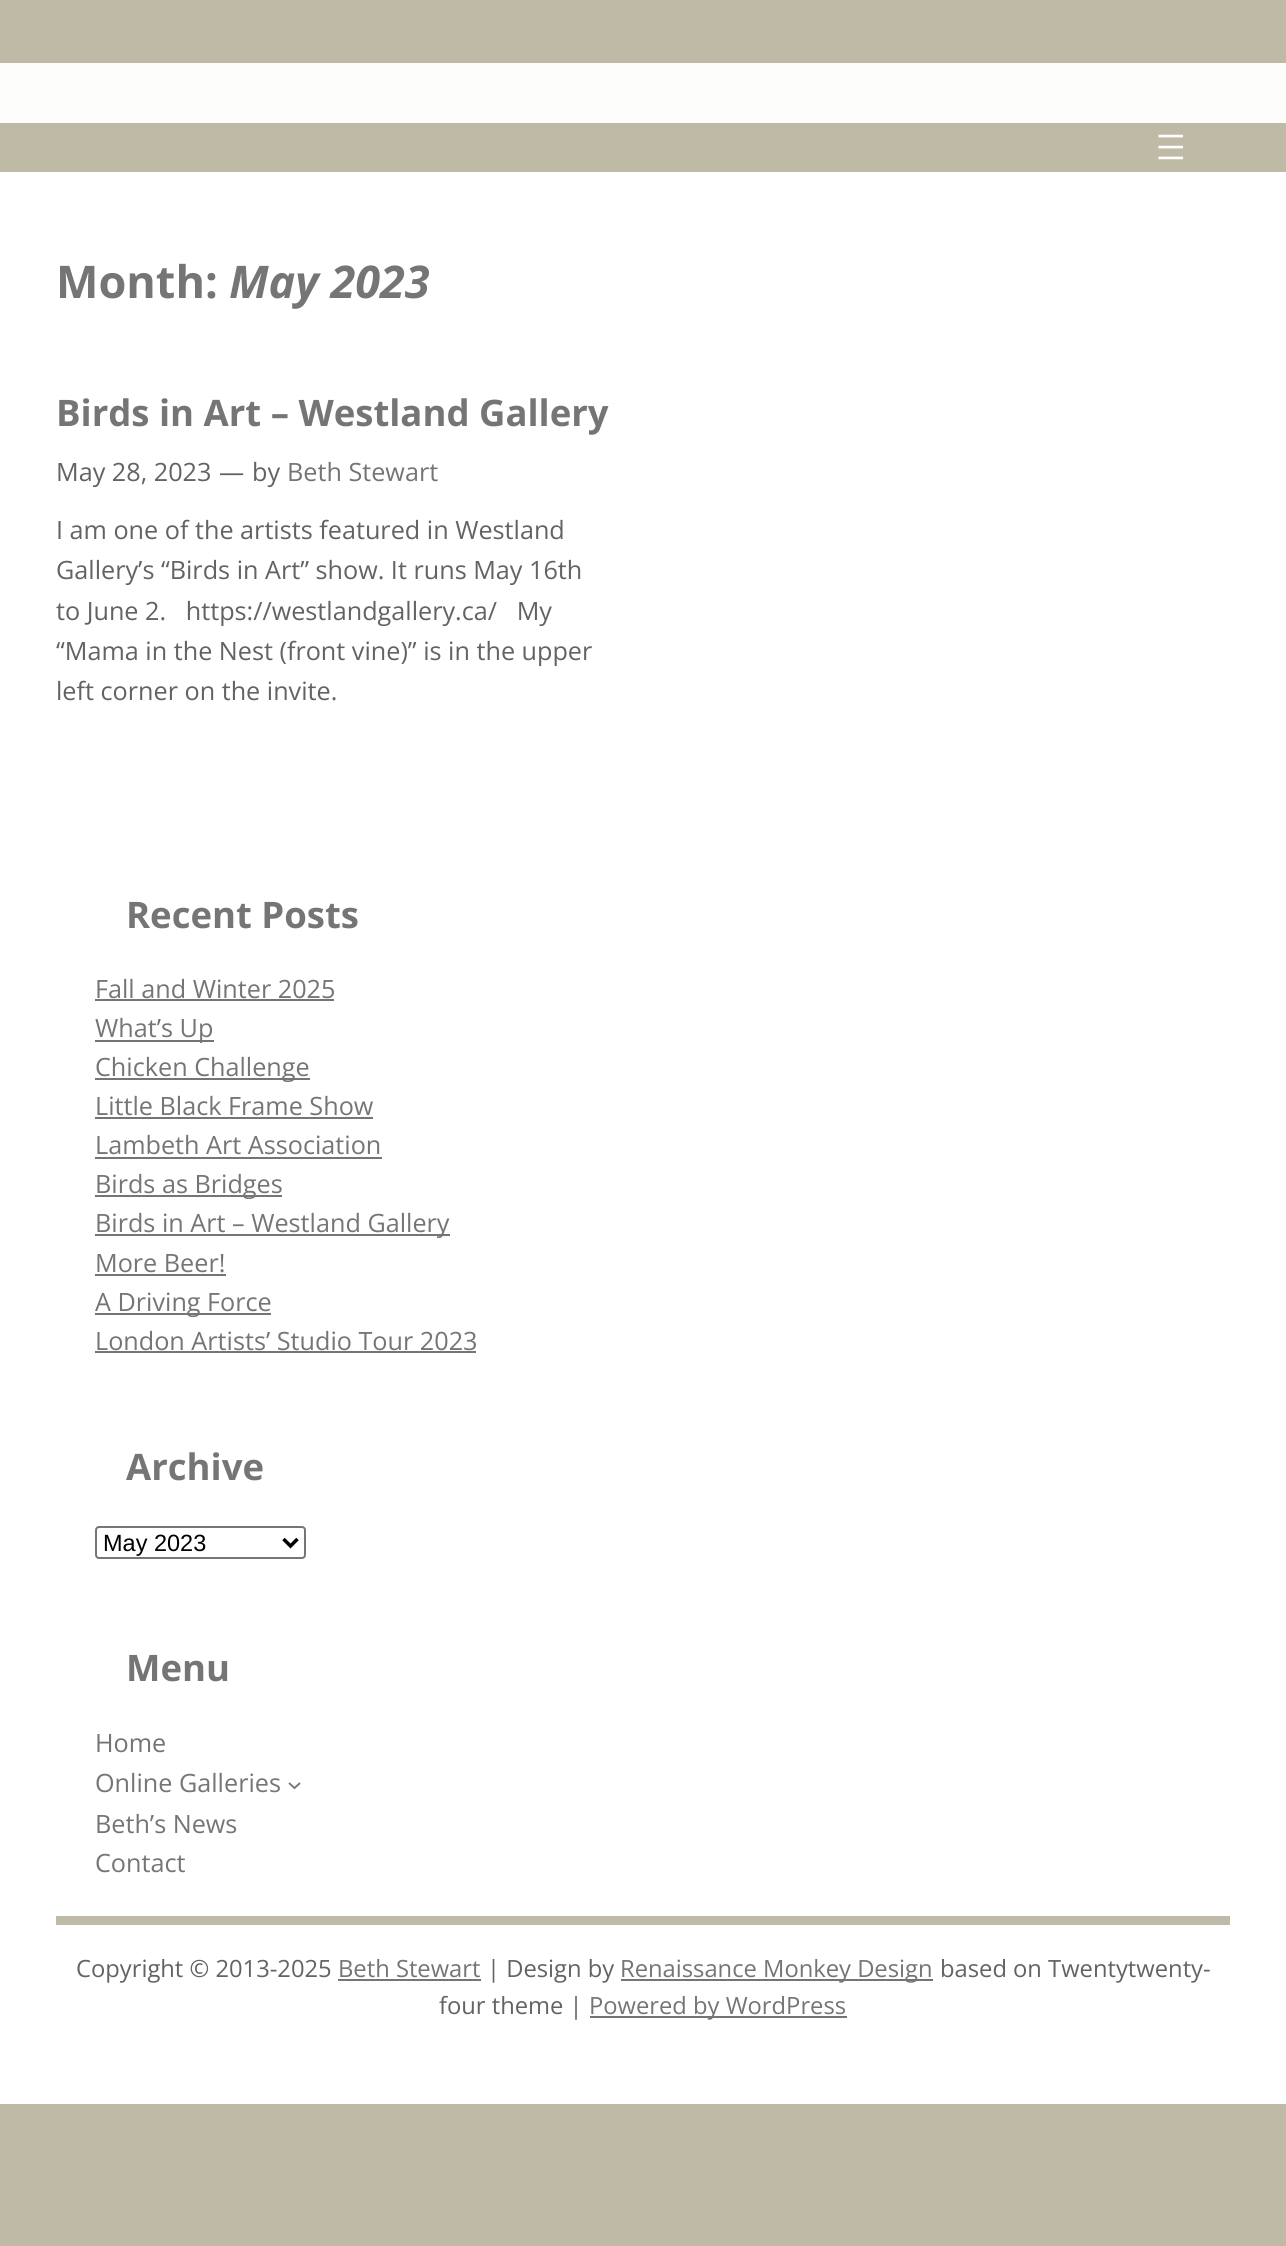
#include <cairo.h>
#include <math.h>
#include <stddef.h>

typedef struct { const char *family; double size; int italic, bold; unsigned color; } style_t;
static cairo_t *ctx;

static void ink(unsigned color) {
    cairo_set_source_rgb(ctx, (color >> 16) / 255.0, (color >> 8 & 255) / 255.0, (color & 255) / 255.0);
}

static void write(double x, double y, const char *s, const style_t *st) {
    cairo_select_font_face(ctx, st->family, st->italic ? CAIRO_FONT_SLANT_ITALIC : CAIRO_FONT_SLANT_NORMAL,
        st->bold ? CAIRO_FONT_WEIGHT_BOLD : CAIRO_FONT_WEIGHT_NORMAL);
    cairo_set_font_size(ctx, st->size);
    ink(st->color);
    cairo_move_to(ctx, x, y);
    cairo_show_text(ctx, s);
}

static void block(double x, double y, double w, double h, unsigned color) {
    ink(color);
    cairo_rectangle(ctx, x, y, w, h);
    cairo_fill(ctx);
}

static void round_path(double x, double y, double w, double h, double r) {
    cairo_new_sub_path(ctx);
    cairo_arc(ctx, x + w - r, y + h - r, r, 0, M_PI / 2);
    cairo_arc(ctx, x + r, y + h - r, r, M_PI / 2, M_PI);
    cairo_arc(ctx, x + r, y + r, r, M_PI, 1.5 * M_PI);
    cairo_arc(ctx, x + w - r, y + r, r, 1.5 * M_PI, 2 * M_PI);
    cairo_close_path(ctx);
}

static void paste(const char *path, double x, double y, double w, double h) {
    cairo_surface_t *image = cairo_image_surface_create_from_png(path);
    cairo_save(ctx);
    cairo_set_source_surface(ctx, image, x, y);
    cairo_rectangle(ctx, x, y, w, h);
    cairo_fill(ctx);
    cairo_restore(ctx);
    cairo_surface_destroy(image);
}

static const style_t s1 = {"Open Sans", 45, 0, 1, 0x757575};
static const style_t s2 = {"Open Sans", 45, 1, 1, 0x757575};
static const style_t s3 = {"Open Sans", 36.5, 0, 1, 0x757575};
static const style_t s4 = {"Open Sans", 25.2, 0, 0, 0x636363};
static const style_t s5 = {"Open Sans", 25.2, 0, 0, 0x757575};
static const style_t s6 = {"Liberation Sans", 23.5, 0, 0, 0x000000};
static const style_t s7 = {"Open Sans", 23.75, 0, 0, 0x636363};
static const style_t s8 = {"Open Sans", 23.75, 0, 0, 0x757575};

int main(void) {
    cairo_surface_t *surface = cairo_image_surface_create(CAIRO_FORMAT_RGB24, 1286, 2246);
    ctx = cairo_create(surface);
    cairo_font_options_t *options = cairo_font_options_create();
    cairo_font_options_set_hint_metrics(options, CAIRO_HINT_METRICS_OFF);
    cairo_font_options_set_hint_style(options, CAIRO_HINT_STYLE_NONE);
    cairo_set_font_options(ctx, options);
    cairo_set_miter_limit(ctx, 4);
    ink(0xbfbaa6);
    cairo_paint(ctx);
    block(0, 63, 1286, 60, 0xfdfdfc);
    block(0, 172, 1286, 1932, 0xffffff);
    paste("pic1.png", 1158, 134, 25, 26);
    write(56, 298, "Month:", &s1);
    write(229, 298, "May 2023", &s2);
    write(56, 426, "Birds in Art – Westland Gallery", &s3);
    write(56, 481, "May 28, 2023", &s4);
    write(219, 481, "—", &s4);
    write(252, 481, "by", &s4);
    write(287, 481, "Beth Stewart", &s5);
    write(56, 539, "I am one of the artists featured in Westland", &s4);
    write(56, 579, "Gallery’s “Birds in Art” show. It runs May 16th", &s4);
    write(56, 620, "to June 2.   https://westlandgallery.ca/   My", &s4);
    write(56, 660, "“Mama in the Nest (front vine)” is in the upper", &s4);
    write(56, 700, "left corner on the invite.", &s4);
    write(126, 928, "Recent Posts", &s3);
    write(95, 998, "Fall and Winter 2025", &s5);
    block(95, 999, 239, 2, 0x757575);
    block(95, 1040, 119, 2, 0x757575);
    write(95, 1037, "What’s Up", &s5);
    block(95, 1078, 215, 2, 0x757575);
    write(95, 1076, "Chicken Challenge", &s5);
    write(95, 1115, "Little Black Frame Show", &s5);
    block(95, 1117, 278, 2, 0x757575);
    write(95, 1154, "Lambeth Art Association", &s5);
    block(95, 1157, 287, 2, 0x757575);
    block(95, 1195, 187, 2, 0x757575);
    write(95, 1193, "Birds as Bridges", &s5);
    block(95, 1234, 355, 2, 0x757575);
    write(95, 1232, "Birds in Art – Westland Gallery", &s5);
    write(95, 1272, "More Beer!", &s5);
    block(95, 1274, 131, 2, 0x757575);
    block(95, 1313, 176, 2, 0x757575);
    write(95, 1311, "A Driving Force", &s5);
    write(95, 1350, "London Artists’ Studio Tour 2023", &s5);
    block(95, 1351, 381, 2, 0x757575);
    write(126, 1480, "Archive", &s3);
    round_path(96, 1527, 209, 31, 3);
    ink(0x767676);
    cairo_stroke(ctx);
    cairo_new_path(ctx);
    cairo_move_to(ctx, 283.5, 1539);
    cairo_line_to(ctx, 290.5, 1546);
    cairo_line_to(ctx, 297.5, 1539);
    ink(0x000000);
    cairo_set_line_width(ctx, 3.5);
    cairo_stroke(ctx);
    write(103, 1551, "May 2023", &s6);
    write(126, 1681, "Menu", &s3);
    write(95, 1752, "Home", &s5);
    write(95, 1792, "Online Galleries", &s5);
    cairo_new_path(ctx);
    cairo_move_to(ctx, 289, 1783);
    cairo_line_to(ctx, 294.5, 1788);
    cairo_line_to(ctx, 300, 1783);
    cairo_set_line_width(ctx, 1.9);
    cairo_stroke(ctx);
    write(95, 1833, "Beth’s News", &s5);
    write(95, 1872, "Contact", &s5);
    block(56, 1916, 1174, 9, 0xbfbaa6);
    write(76, 1977, "Copyright © 2013-2025", &s7);
    write(338, 1977, "Beth Stewart", &s8);
    block(338, 1979, 143, 2, 0x757575);
    write(487, 1977, "| Design by", &s7);
    block(621, 1979, 312, 2, 0x757575);
    write(620, 1977, "Renaissance Monkey Design", &s8);
    write(940, 1977, "based on Twentytwenty-", &s7);
    write(439, 2014, "four theme |", &s7);
    block(590, 2016, 257, 2, 0x757575);
    write(589, 2014, "Powered by WordPress", &s8);
    cairo_surface_write_to_png(surface, "screenshot.png");
    cairo_font_options_destroy(options);
    cairo_destroy(ctx);
    cairo_surface_destroy(surface);
    return 0;
}
